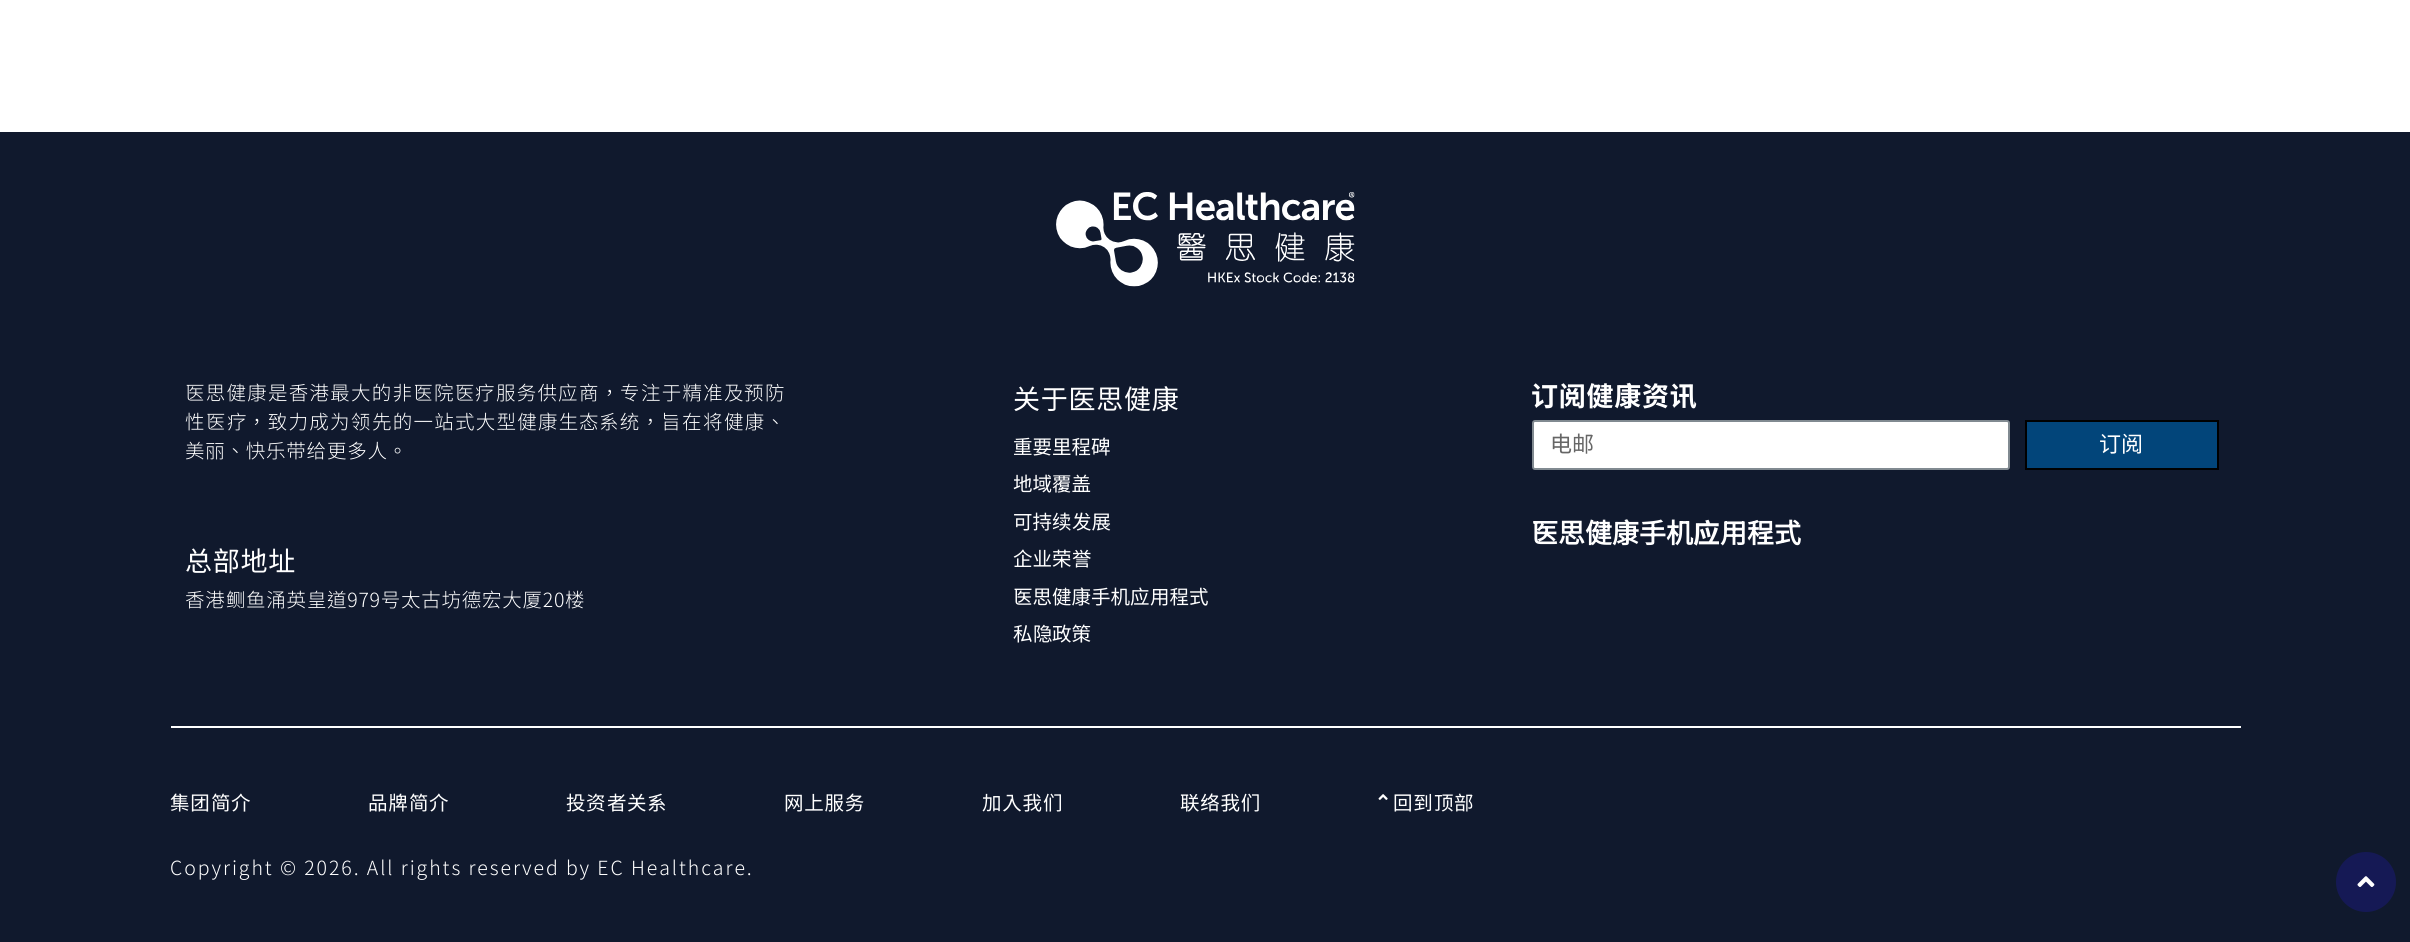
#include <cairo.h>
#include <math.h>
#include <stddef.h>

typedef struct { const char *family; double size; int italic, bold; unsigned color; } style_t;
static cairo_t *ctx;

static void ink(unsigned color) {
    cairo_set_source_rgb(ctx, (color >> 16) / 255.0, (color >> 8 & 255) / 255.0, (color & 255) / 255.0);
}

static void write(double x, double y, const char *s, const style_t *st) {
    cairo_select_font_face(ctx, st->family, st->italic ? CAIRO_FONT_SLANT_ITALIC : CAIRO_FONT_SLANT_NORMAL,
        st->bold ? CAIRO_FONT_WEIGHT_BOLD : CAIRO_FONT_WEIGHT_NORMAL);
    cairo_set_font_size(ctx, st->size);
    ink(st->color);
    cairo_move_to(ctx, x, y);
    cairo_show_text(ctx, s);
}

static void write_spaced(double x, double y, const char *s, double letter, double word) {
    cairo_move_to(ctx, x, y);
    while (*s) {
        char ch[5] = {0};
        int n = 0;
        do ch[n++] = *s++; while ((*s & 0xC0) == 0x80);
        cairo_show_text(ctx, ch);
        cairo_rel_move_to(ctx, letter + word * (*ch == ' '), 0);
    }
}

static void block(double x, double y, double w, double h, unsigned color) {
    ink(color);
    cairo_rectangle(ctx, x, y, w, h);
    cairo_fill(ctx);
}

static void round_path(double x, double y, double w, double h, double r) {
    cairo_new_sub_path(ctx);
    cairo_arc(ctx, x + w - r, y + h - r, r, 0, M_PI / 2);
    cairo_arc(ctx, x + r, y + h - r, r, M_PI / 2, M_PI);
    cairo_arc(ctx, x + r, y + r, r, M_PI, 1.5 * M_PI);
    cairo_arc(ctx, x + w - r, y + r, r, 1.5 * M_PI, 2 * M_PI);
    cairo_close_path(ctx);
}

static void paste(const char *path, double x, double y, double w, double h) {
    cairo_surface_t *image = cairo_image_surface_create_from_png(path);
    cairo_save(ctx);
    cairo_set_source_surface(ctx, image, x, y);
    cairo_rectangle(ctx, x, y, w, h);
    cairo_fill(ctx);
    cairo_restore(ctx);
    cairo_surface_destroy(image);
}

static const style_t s1 = {"Noto Sans TC", 19.5, 0, 0, 0xffffff};
static const style_t s2 = {"Noto Sans SC", 19.5, 0, 0, 0xffffff};
static const style_t s3 = {"Noto Sans CJK SC", 22, 0, 0, 0x666666};
static const style_t s4 = {"Noto Sans CJK SC", 22, 0, 0, 0xffffff};
static const style_t s5 = {"Noto Sans TC", 27, 0, 1, 0xffffff};
static const style_t s6 = {"Noto Sans SC", 27, 0, 1, 0xffffff};

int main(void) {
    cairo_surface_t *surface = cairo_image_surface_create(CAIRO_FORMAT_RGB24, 2410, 942);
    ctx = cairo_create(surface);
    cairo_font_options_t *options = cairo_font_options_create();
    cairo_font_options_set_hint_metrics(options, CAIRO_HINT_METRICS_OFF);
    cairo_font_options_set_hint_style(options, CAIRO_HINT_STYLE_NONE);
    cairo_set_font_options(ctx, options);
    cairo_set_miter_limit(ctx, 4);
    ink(0xffffff);
    cairo_paint(ctx);
    block(0, 132, 2410, 810, 0x10192d);
    paste("pic1.png", 1056, 192, 299, 95);
    cairo_select_font_face(ctx, "Noto Sans TC Light", CAIRO_FONT_SLANT_NORMAL, CAIRO_FONT_WEIGHT_NORMAL);
    cairo_set_font_size(ctx, 19.5);
    ink(0xffffff);
    write_spaced(185, 400, "医思健康是香港最大的非医院医", 1.25, 0);
    cairo_select_font_face(ctx, "Noto Sans SC Light", CAIRO_FONT_SLANT_NORMAL, CAIRO_FONT_WEIGHT_NORMAL);
    write_spaced(475, 400, "疗", 1.25, 0);
    cairo_select_font_face(ctx, "Noto Sans TC Light", CAIRO_FONT_SLANT_NORMAL, CAIRO_FONT_WEIGHT_NORMAL);
    write_spaced(496, 400, "服务供", 1.25, 0);
    cairo_select_font_face(ctx, "Noto Sans SC Light", CAIRO_FONT_SLANT_NORMAL, CAIRO_FONT_WEIGHT_NORMAL);
    write_spaced(558, 400, "应", 1.25, 0);
    cairo_select_font_face(ctx, "Noto Sans TC Light", CAIRO_FONT_SLANT_NORMAL, CAIRO_FONT_WEIGHT_NORMAL);
    write_spaced(579, 400, "商，", 1.25, 0);
    cairo_select_font_face(ctx, "Noto Sans SC Light", CAIRO_FONT_SLANT_NORMAL, CAIRO_FONT_WEIGHT_NORMAL);
    write_spaced(620, 400, "专", 1.25, 0);
    cairo_select_font_face(ctx, "Noto Sans TC Light", CAIRO_FONT_SLANT_NORMAL, CAIRO_FONT_WEIGHT_NORMAL);
    write_spaced(641, 400, "注于精准及", 1.25, 0);
    cairo_select_font_face(ctx, "Noto Sans SC Light", CAIRO_FONT_SLANT_NORMAL, CAIRO_FONT_WEIGHT_NORMAL);
    write_spaced(744, 400, "预", 1.25, 0);
    cairo_select_font_face(ctx, "Noto Sans TC Light", CAIRO_FONT_SLANT_NORMAL, CAIRO_FONT_WEIGHT_NORMAL);
    write_spaced(765, 400, "防", 1.25, 0);
    write_spaced(185, 429, "性医", 1.25, 0);
    cairo_select_font_face(ctx, "Noto Sans SC Light", CAIRO_FONT_SLANT_NORMAL, CAIRO_FONT_WEIGHT_NORMAL);
    write_spaced(227, 429, "疗", 1.25, 0);
    cairo_select_font_face(ctx, "Noto Sans TC Light", CAIRO_FONT_SLANT_NORMAL, CAIRO_FONT_WEIGHT_NORMAL);
    write_spaced(247, 429, "，致力成", 1.25, 0);
    cairo_select_font_face(ctx, "Noto Sans SC Light", CAIRO_FONT_SLANT_NORMAL, CAIRO_FONT_WEIGHT_NORMAL);
    write_spaced(330, 429, "为领", 1.25, 0);
    cairo_select_font_face(ctx, "Noto Sans TC Light", CAIRO_FONT_SLANT_NORMAL, CAIRO_FONT_WEIGHT_NORMAL);
    write_spaced(372, 429, "先的一站式大型健康生", 1.25, 0);
    cairo_select_font_face(ctx, "Noto Sans SC Light", CAIRO_FONT_SLANT_NORMAL, CAIRO_FONT_WEIGHT_NORMAL);
    write_spaced(579, 429, "态", 1.25, 0);
    cairo_select_font_face(ctx, "Noto Sans TC Light", CAIRO_FONT_SLANT_NORMAL, CAIRO_FONT_WEIGHT_NORMAL);
    write_spaced(599, 429, "系统，旨在", 1.25, 0);
    cairo_select_font_face(ctx, "Noto Sans SC Light", CAIRO_FONT_SLANT_NORMAL, CAIRO_FONT_WEIGHT_NORMAL);
    write_spaced(703, 429, "将", 1.25, 0);
    cairo_select_font_face(ctx, "Noto Sans TC Light", CAIRO_FONT_SLANT_NORMAL, CAIRO_FONT_WEIGHT_NORMAL);
    write_spaced(724, 429, "健康、", 1.25, 0);
    write_spaced(185, 458, "美丽、快", 0.75, 0);
    cairo_select_font_face(ctx, "Noto Sans SC Light", CAIRO_FONT_SLANT_NORMAL, CAIRO_FONT_WEIGHT_NORMAL);
    write_spaced(266, 458, "乐带给", 0.75, 0);
    cairo_select_font_face(ctx, "Noto Sans TC Light", CAIRO_FONT_SLANT_NORMAL, CAIRO_FONT_WEIGHT_NORMAL);
    write_spaced(327, 458, "更多人。", 0.75, 0);
    cairo_select_font_face(ctx, "Noto Sans TC", CAIRO_FONT_SLANT_NORMAL, CAIRO_FONT_WEIGHT_NORMAL);
    cairo_set_font_size(ctx, 27);
    write_spaced(185, 571, "总部地址", 0.75, 0);
    cairo_select_font_face(ctx, "Noto Sans TC Light", CAIRO_FONT_SLANT_NORMAL, CAIRO_FONT_WEIGHT_NORMAL);
    cairo_set_font_size(ctx, 19.5);
    write_spaced(185, 607, "香港", 0.75, 0);
    cairo_select_font_face(ctx, "Noto Sans SC Light", CAIRO_FONT_SLANT_NORMAL, CAIRO_FONT_WEIGHT_NORMAL);
    write_spaced(226, 607, "鲗", 0.75, 0);
    cairo_select_font_face(ctx, "Noto Sans TC Light", CAIRO_FONT_SLANT_NORMAL, CAIRO_FONT_WEIGHT_NORMAL);
    write_spaced(246, 607, "鱼涌英", 0.75, 0);
    cairo_select_font_face(ctx, "Noto Sans SC Light", CAIRO_FONT_SLANT_NORMAL, CAIRO_FONT_WEIGHT_NORMAL);
    write_spaced(307, 607, "皇", 0.75, 0);
    cairo_select_font_face(ctx, "Noto Sans TC Light", CAIRO_FONT_SLANT_NORMAL, CAIRO_FONT_WEIGHT_NORMAL);
    write_spaced(327, 607, "道979号太古坊德宏大厦20", 0.75, 0);
    cairo_select_font_face(ctx, "Noto Sans SC Light", CAIRO_FONT_SLANT_NORMAL, CAIRO_FONT_WEIGHT_NORMAL);
    write_spaced(565, 607, "楼", 0.75, 0);
    cairo_select_font_face(ctx, "Noto Sans CJK SC", CAIRO_FONT_SLANT_NORMAL, CAIRO_FONT_WEIGHT_NORMAL);
    cairo_set_font_size(ctx, 27);
    write_spaced(1013, 409, "关于医思健康", 0.75, 0);
    write(1013, 454, "重要里程碑", &s1);
    write(1013, 491, "地域覆盖", &s1);
    write(1013, 529, "可持", &s1);
    write(1052, 529, "续", &s2);
    write(1072, 529, "发展", &s1);
    write(1013, 566, "企业荣", &s1);
    write(1072, 566, "誉", &s2);
    write(1013, 604, "医思健康手机", &s1);
    write(1130, 604, "应", &s2);
    write(1150, 604, "用程式", &s1);
    write(1013, 641, "私", &s1);
    write(1033, 641, "隐", &s2);
    write(1052, 641, "政策", &s1);
    cairo_select_font_face(ctx, "Noto Sans SC", CAIRO_FONT_SLANT_NORMAL, CAIRO_FONT_WEIGHT_BOLD);
    cairo_set_font_size(ctx, 27);
    write_spaced(1531, 406, "订阅健康资讯", 0.75, 0);
    round_path(1533, 421, 476, 48, 2);
    cairo_fill_preserve(ctx);
    ink(0x818a91);
    cairo_stroke(ctx);
    write(1550, 452, "电邮", &s3);
    ink(0x02457a);
    cairo_rectangle(ctx, 2026, 421, 192, 48);
    cairo_fill_preserve(ctx);
    ink(0x000000);
    cairo_stroke(ctx);
    write(2099, 452, "订阅", &s4);
    write(1531, 543, "医思健康手机", &s5);
    write(1693, 543, "应", &s6);
    write(1720, 543, "用程式", &s5);
    block(171, 726, 2070, 2, 0xffffff);
    cairo_select_font_face(ctx, "Noto Sans TC", CAIRO_FONT_SLANT_NORMAL, CAIRO_FONT_WEIGHT_NORMAL);
    cairo_set_font_size(ctx, 19.5);
    write_spaced(170, 810, "集团", 0.75, 0);
    cairo_select_font_face(ctx, "Noto Sans SC", CAIRO_FONT_SLANT_NORMAL, CAIRO_FONT_WEIGHT_NORMAL);
    write_spaced(211, 810, "简", 0.75, 0);
    cairo_select_font_face(ctx, "Noto Sans TC", CAIRO_FONT_SLANT_NORMAL, CAIRO_FONT_WEIGHT_NORMAL);
    write_spaced(231, 810, "介", 0.75, 0);
    write_spaced(368, 810, "品牌", 0.75, 0);
    cairo_select_font_face(ctx, "Noto Sans SC", CAIRO_FONT_SLANT_NORMAL, CAIRO_FONT_WEIGHT_NORMAL);
    write_spaced(409, 810, "简", 0.75, 0);
    cairo_select_font_face(ctx, "Noto Sans TC", CAIRO_FONT_SLANT_NORMAL, CAIRO_FONT_WEIGHT_NORMAL);
    write_spaced(429, 810, "介", 0.75, 0);
    write_spaced(566, 810, "投", 0.75, 0);
    cairo_select_font_face(ctx, "Noto Sans SC", CAIRO_FONT_SLANT_NORMAL, CAIRO_FONT_WEIGHT_NORMAL);
    write_spaced(586, 810, "资", 0.75, 0);
    cairo_select_font_face(ctx, "Noto Sans TC", CAIRO_FONT_SLANT_NORMAL, CAIRO_FONT_WEIGHT_NORMAL);
    write_spaced(607, 810, "者", 0.75, 0);
    cairo_select_font_face(ctx, "Noto Sans SC", CAIRO_FONT_SLANT_NORMAL, CAIRO_FONT_WEIGHT_NORMAL);
    write_spaced(627, 810, "关", 0.75, 0);
    cairo_select_font_face(ctx, "Noto Sans TC", CAIRO_FONT_SLANT_NORMAL, CAIRO_FONT_WEIGHT_NORMAL);
    write_spaced(647, 810, "系", 0.75, 0);
    write_spaced(784, 810, "网上服务", 0.75, 0);
    write_spaced(982, 810, "加入我", 0.75, 0);
    cairo_select_font_face(ctx, "Noto Sans SC", CAIRO_FONT_SLANT_NORMAL, CAIRO_FONT_WEIGHT_NORMAL);
    write_spaced(1043, 810, "们", 0.75, 0);
    write_spaced(1180, 810, "联络我们", 0.75, 0);
    paste("pic2.png", 1378, 794, 10, 6);
    cairo_select_font_face(ctx, "Noto Sans TC", CAIRO_FONT_SLANT_NORMAL, CAIRO_FONT_WEIGHT_NORMAL);
    write_spaced(1393, 810, "回到", 0.75, 0);
    cairo_select_font_face(ctx, "Noto Sans SC", CAIRO_FONT_SLANT_NORMAL, CAIRO_FONT_WEIGHT_NORMAL);
    write_spaced(1434, 810, "顶", 0.75, 0);
    cairo_select_font_face(ctx, "Noto Sans TC", CAIRO_FONT_SLANT_NORMAL, CAIRO_FONT_WEIGHT_NORMAL);
    write_spaced(1454, 810, "部", 0.75, 0);
    cairo_select_font_face(ctx, "Noto Sans TC Light", CAIRO_FONT_SLANT_NORMAL, CAIRO_FONT_WEIGHT_NORMAL);
    write_spaced(170, 875, "Copyright © 2026. All rights reserved by EC Healthcare.", 1.95, 0);
    ink(0x151955);
    cairo_new_path(ctx);
    cairo_arc(ctx, 2366, 882, 30, 0, 2 * M_PI);
    cairo_fill(ctx);
    paste("pic3.png", 2357, 876, 18, 11);
    cairo_surface_write_to_png(surface, "screenshot.png");
    cairo_font_options_destroy(options);
    cairo_destroy(ctx);
    cairo_surface_destroy(surface);
    return 0;
}
